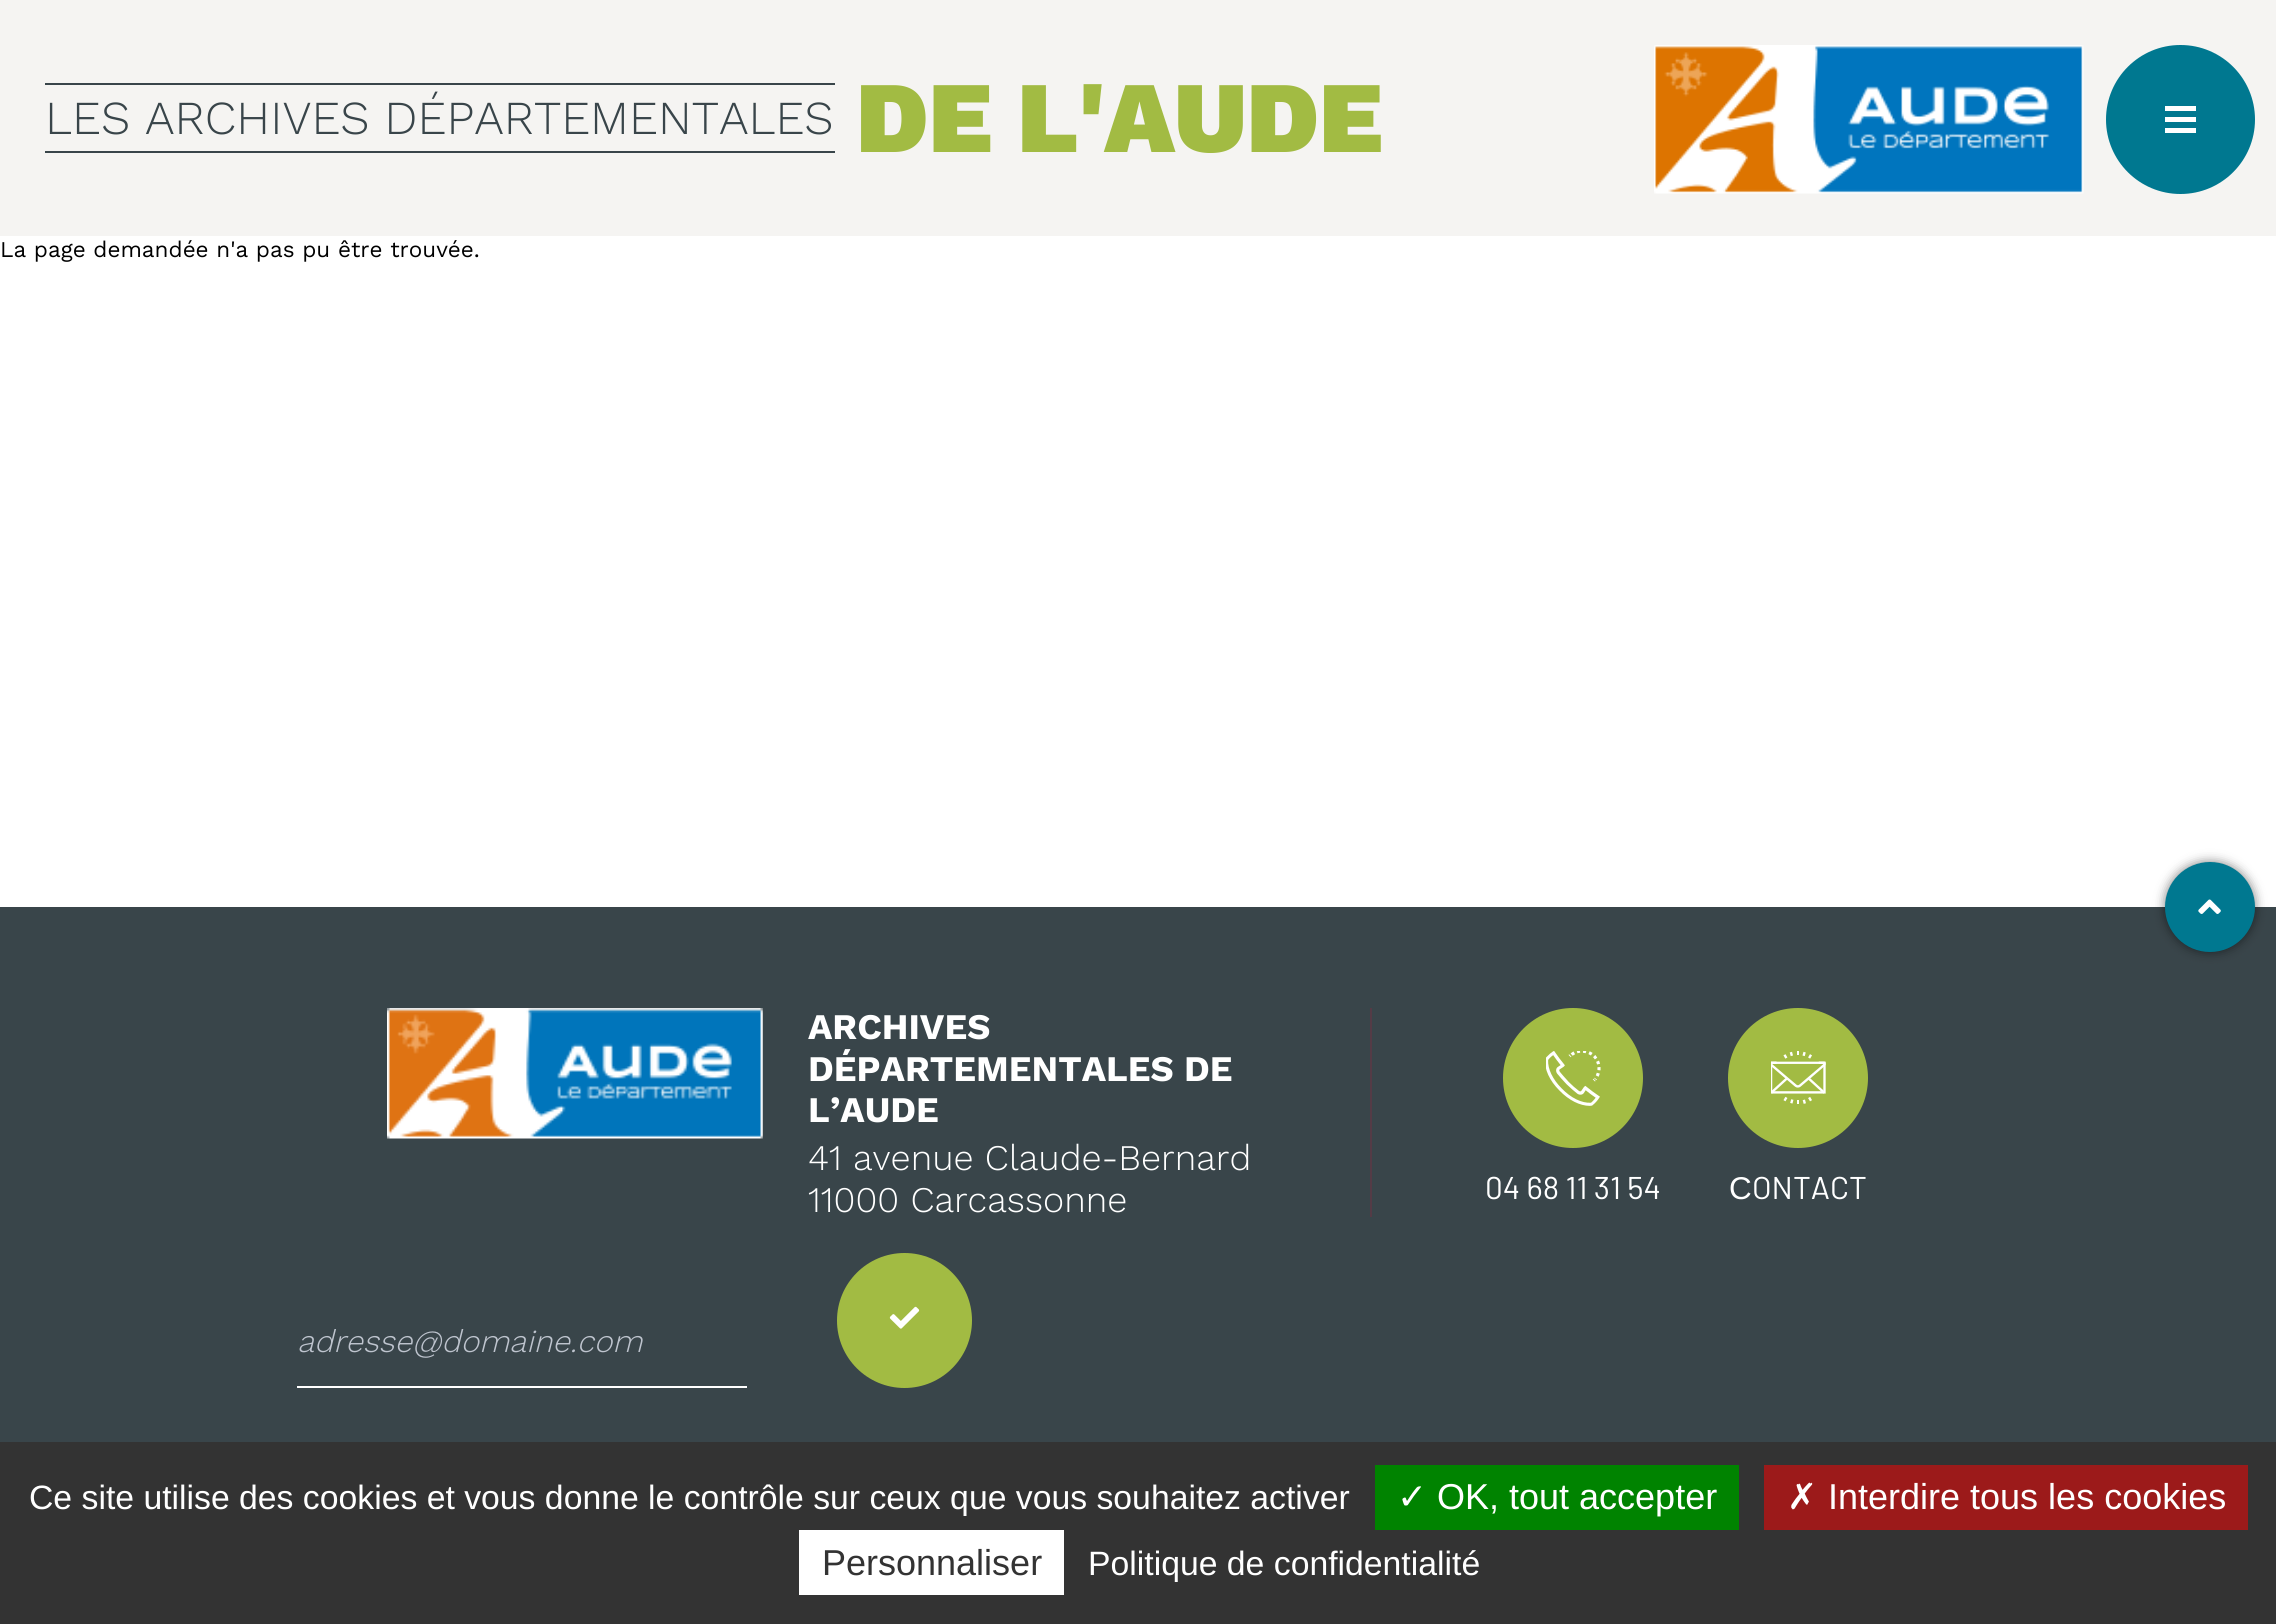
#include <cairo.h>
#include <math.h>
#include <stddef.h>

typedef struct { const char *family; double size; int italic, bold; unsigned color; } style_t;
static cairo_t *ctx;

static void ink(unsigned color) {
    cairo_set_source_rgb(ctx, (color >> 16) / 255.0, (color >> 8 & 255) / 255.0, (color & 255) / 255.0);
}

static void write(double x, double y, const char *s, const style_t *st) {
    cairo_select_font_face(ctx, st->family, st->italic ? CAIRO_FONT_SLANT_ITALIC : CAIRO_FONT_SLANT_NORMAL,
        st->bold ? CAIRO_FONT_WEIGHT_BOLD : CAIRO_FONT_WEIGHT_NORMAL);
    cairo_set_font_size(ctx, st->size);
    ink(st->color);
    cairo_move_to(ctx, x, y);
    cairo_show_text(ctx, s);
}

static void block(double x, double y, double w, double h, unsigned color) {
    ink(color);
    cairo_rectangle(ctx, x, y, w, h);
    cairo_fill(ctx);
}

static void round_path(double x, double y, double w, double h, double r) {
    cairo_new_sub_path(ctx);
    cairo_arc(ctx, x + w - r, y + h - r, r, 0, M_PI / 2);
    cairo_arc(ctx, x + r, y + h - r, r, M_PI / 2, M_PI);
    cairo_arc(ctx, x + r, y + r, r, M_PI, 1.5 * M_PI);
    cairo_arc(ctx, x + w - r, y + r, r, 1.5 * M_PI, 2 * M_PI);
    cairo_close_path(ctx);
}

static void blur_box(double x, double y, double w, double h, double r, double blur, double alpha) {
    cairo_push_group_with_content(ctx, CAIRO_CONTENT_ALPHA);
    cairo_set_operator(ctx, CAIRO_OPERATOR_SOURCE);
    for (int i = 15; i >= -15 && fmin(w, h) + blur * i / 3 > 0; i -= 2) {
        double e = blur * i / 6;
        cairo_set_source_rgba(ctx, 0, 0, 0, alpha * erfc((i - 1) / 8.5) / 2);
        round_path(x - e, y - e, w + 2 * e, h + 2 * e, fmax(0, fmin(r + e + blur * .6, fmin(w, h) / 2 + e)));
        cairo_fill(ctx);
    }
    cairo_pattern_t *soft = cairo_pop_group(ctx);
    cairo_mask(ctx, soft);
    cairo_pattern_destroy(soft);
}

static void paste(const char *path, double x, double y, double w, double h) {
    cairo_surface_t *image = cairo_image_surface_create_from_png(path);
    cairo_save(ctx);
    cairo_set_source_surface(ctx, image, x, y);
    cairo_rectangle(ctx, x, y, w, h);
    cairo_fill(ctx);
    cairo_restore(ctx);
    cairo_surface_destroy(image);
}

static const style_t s1 = {"Work Sans Light", 47.25, 0, 0, 0x39454a};
static const style_t s2 = {"Work Sans Black", 101.25, 0, 0, 0xa2bb43};
static const style_t s3 = {"Work Sans", 22.5, 0, 0, 0x000000};
static const style_t s4 = {"Work Sans", 36, 0, 1, 0xffffff};
static const style_t s5 = {"Work Sans Light", 36, 0, 0, 0xffffff};
static const style_t s6 = {"Barlow", 31.5, 0, 0, 0xffffff};
static const style_t s7 = {"Liberation Sans", 31.5, 0, 0, 0xffffff};
static const style_t s8 = {"Work Sans Light", 31.5, 1, 0, 0xbec4ce};
static const style_t s9 = {"Liberation Sans", 33.75, 0, 0, 0xffffff};
static const style_t s10 = {"DejaVu Sans", 36, 0, 0, 0xffffff};
static const style_t s11 = {"Liberation Sans", 36, 0, 0, 0xffffff};
static const style_t s12 = {"Liberation Sans", 36, 0, 0, 0x333333};

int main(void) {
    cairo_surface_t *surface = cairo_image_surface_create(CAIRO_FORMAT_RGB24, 2276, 1624);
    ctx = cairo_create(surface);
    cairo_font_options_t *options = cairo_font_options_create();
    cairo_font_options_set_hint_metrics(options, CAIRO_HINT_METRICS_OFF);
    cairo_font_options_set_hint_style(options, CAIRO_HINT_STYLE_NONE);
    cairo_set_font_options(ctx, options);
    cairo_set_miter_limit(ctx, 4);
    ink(0xffffff);
    cairo_paint(ctx);
    block(0, 0, 2276, 236, 0xf5f4f2);
    block(45, 83, 790, 2, 0x39454a);
    block(45, 151, 790, 2, 0x39454a);
    write(45, 134, "LES ARCHIVES DÉPARTEMENTALES", &s1);
    write(856, 152, "DE L'AUDE", &s2);
    paste("pic1.png", 1654, 45, 430, 149);
    ink(0x007890);
    cairo_arc(ctx, 2180.5, 119.5, 74.5, 0, 2 * M_PI);
    cairo_fill(ctx);
    block(2165, 106, 31, 5, 0xffffff);
    block(2165, 117, 31, 5, 0xffffff);
    block(2165, 128, 31, 5, 0xffffff);
    write(0, 257, "La page demandée n'a pas pu être trouvée.", &s3);
    block(0, 907, 2276, 535, 0x39454a);
    ink(0x000000);
    blur_box(2165, 862, 90, 90, 45, 5.5, 0.5);
    ink(0x007890);
    cairo_arc(ctx, 2210, 907, 45, 0, 2 * M_PI);
    cairo_fill(ctx);
    paste("pic2.png", 2198, 899, 23, 15);
    paste("pic3.png", 387, 1008, 376, 131);
    write(808, 1039, "ARCHIVES", &s4);
    write(808, 1081, "DÉPARTEMENTALES DE", &s4);
    write(808, 1122, "L’AUDE", &s4);
    write(808, 1170, "41 avenue Claude-Bernard", &s5);
    write(808, 1212, "11000 Carcassonne", &s5);
    block(1370, 1008, 2, 209, 0x543b46);
    ink(0xa2bb43);
    cairo_new_path(ctx);
    cairo_arc(ctx, 1573, 1078, 70, 0, 2 * M_PI);
    cairo_fill(ctx);
    paste("pic4.png", 1546, 1051, 55, 55);
    write(1485, 1199, "04 68 11 31 54", &s6);
    ink(0xa2bb43);
    cairo_new_path(ctx);
    cairo_arc(ctx, 1798, 1078, 70, 0, 2 * M_PI);
    cairo_fill(ctx);
    paste("pic5.png", 1771, 1051, 55, 53);
    write(1729, 1199, "С", &s7);
    write(1752, 1199, "ONTACT", &s6);
    block(297, 1386, 450, 2, 0xffffff);
    write(297, 1352, "adresse@domaine.com", &s8);
    ink(0xa2bb43);
    cairo_new_path(ctx);
    cairo_arc(ctx, 904.5, 1320.5, 67.5, 0, 2 * M_PI);
    cairo_fill(ctx);
    paste("pic6.png", 889, 1306, 31, 23);
    block(0, 1442, 2276, 182, 0x333333);
    write(29, 1509, "Ce site utilise des cookies et vous donne le contrôle sur ceux que vous souhaitez activer", &s9);
    block(1375, 1465, 364, 65, 0x008300);
    write(1397, 1509, "✓", &s10);
    write(1437, 1509, "OK, tout accepter", &s11);
    block(1764, 1465, 484, 65, 0x9c1a1a);
    write(1787, 1509, "✗", &s10);
    write(1828, 1509, "Interdire tous les cookies", &s11);
    block(799, 1530, 265, 65, 0xffffff);
    write(822, 1575, "Personnaliser", &s12);
    write(1088, 1575, "Politique de confidentialité", &s9);
    cairo_surface_write_to_png(surface, "screenshot.png");
    cairo_font_options_destroy(options);
    cairo_destroy(ctx);
    cairo_surface_destroy(surface);
    return 0;
}
